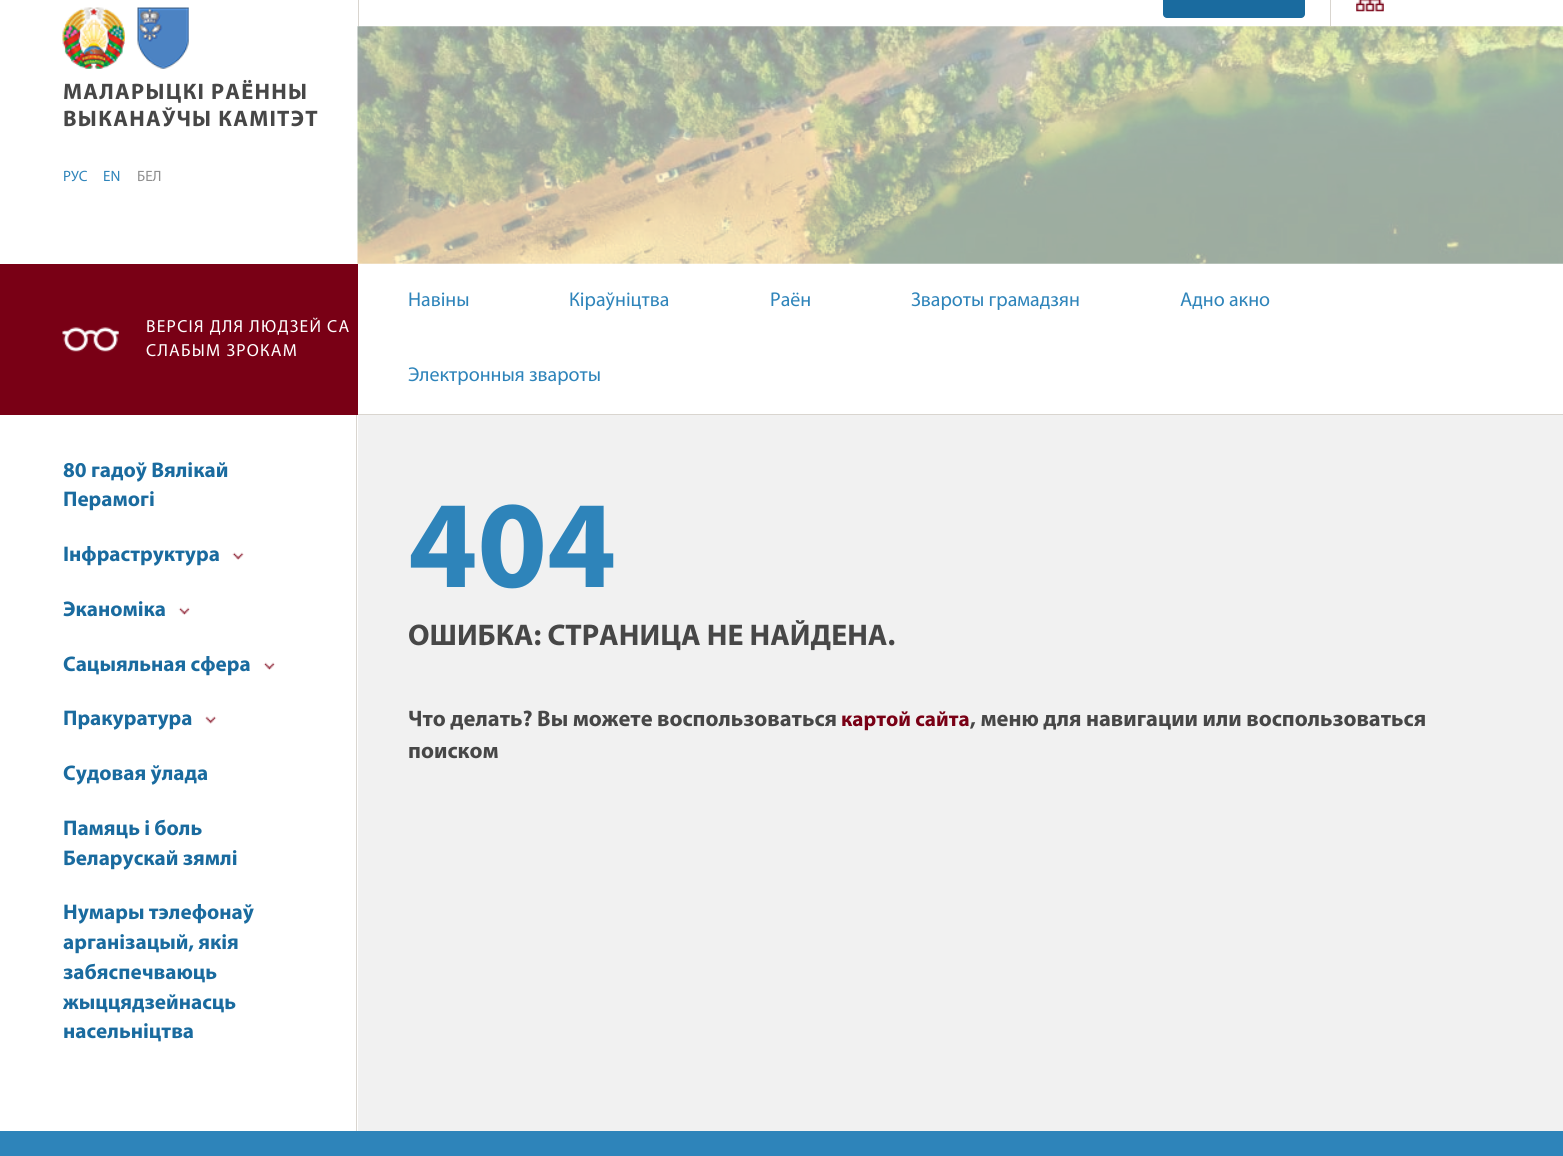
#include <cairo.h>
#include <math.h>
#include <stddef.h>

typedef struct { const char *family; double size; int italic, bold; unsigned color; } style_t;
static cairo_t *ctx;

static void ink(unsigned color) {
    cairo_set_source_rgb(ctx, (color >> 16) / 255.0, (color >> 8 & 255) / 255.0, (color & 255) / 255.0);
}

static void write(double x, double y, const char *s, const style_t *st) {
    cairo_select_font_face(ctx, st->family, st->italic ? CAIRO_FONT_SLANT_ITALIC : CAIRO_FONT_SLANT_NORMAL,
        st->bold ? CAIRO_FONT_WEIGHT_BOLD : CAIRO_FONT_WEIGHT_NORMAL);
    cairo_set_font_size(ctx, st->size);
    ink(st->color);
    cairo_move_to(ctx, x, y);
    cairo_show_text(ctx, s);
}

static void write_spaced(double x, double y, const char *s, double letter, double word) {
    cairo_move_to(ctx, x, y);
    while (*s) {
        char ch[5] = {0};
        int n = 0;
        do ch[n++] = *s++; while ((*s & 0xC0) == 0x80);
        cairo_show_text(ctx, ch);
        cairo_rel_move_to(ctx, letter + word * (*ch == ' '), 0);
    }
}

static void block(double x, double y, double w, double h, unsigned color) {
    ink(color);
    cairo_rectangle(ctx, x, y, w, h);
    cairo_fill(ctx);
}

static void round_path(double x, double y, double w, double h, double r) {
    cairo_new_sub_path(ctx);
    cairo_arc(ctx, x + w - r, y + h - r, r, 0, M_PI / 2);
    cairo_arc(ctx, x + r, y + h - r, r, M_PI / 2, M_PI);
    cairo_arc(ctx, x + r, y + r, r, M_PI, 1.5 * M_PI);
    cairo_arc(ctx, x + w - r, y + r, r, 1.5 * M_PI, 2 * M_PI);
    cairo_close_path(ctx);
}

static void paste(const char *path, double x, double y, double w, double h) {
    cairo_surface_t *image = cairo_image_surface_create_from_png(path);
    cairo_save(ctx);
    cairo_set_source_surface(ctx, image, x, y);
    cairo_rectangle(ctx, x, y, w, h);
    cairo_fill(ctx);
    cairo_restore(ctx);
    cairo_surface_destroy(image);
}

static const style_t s1 = {"Myriad", 15, 0, 0, 0x2e84ba};
static const style_t s2 = {"Myriad", 15, 0, 0, 0x8f8f8f};
static const style_t s3 = {"Myriad", 20, 0, 0, 0x2e84ba};
static const style_t s4 = {"Myriad", 21.25, 0, 1, 0x1a6b9f};
static const style_t s5 = {"Myriad", 125, 0, 1, 0x2e84ba};
static const style_t s6 = {"Myriad", 30, 0, 1, 0x474747};
static const style_t s7 = {"Myriad", 22.5, 0, 1, 0x474747};
static const style_t s8 = {"Myriad", 21.25, 0, 1, 0x790015};

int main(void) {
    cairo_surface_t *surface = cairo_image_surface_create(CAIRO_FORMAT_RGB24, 1563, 1156);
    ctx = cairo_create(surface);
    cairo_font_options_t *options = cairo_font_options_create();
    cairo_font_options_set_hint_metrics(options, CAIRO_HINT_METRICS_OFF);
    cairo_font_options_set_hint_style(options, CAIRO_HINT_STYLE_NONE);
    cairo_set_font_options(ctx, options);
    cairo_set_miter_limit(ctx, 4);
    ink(0xffffff);
    cairo_paint(ctx);
    paste("pic1.png", 62, 7, 63, 62);
    paste("pic2.png", 137, 7, 52, 62);
    cairo_select_font_face(ctx, "Myriad", CAIRO_FONT_SLANT_NORMAL, CAIRO_FONT_WEIGHT_BOLD);
    cairo_set_font_size(ctx, 22.5);
    ink(0x474747);
    write_spaced(63, 99, "МАЛАРЫЦКІ РАЁННЫ", 1.25, 0);
    write_spaced(63, 126, "ВЫКАНАЎЧЫ КАМІТЭТ", 1.25, 0);
    write(63, 181, "РУС", &s1);
    write(103, 181, "EN", &s1);
    write(137, 181, "БЕЛ", &s2);
    block(1330, 0, 1, 26, 0xd9d5cf);
    block(358, 0, 1, 26, 0xd9d5cf);
    ink(0x1a6b9f);
    round_path(1163, -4, 142, 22, 4);
    cairo_fill(ctx);
    paste("pic3.png", 1356, 0, 28, 12);
    paste("pic4.png", 357, 26, 1206, 238);
    block(0, 264, 358, 151, 0x790015);
    paste("pic5.png", 62, 327, 57, 25);
    cairo_set_font_size(ctx, 17.5);
    ink(0xffffff);
    write_spaced(146, 332, "ВЕРСІЯ ДЛЯ ЛЮДЗЕЙ СА", 1.25, 0);
    write_spaced(146, 356, "СЛАБЫМ ЗРОКАМ", 1.25, 0);
    block(358, 414, 1205, 1, 0xd9d5cf);
    write(408, 306, "Навіны", &s3);
    write(569, 306, "Кіраўніцтва", &s3);
    write(770, 306, "Раён", &s3);
    write(911, 306, "Звароты грамадзян", &s3);
    write(1180, 306, "Адно акно", &s3);
    write(408, 381, "Электронныя звароты", &s3);
    block(356, 415, 1, 716, 0xd9d5cf);
    write(63, 477, "80 гадоў Вялікай", &s4);
    write(63, 506, "Перамогі", &s4);
    write(63, 561, "Інфраструктура", &s4);
    paste("pic6.png", 232, 552, 12, 8);
    write(63, 616, "Эканоміка", &s4);
    paste("pic7.png", 178, 607, 12, 8);
    write(63, 671, "Cацыяльная сфера", &s4);
    paste("pic7.png", 263, 662, 12, 8);
    write(63, 725, "Пракуратура", &s4);
    paste("pic8.png", 205, 716, 12, 8);
    write(63, 780, "Судовая ўлада", &s4);
    write(63, 835, "Памяць і боль", &s4);
    write(63, 865, "Беларускай зямлі", &s4);
    write(63, 919, "Нумары тэлефонаў", &s4);
    write(63, 949, "арганізацый, якія", &s4);
    write(63, 979, "забяспечваюць", &s4);
    write(63, 1009, "жыццядзейнасць", &s4);
    write(63, 1038, "насельніцтва", &s4);
    block(358, 415, 1205, 716, 0xf1f1f1);
    write(408, 587, "404", &s5);
    write(408, 645, "ОШИБКА: СТРАНИЦА НЕ НАЙДЕНА.", &s6);
    write(408, 726, "Что делать? Вы можете воспользоваться", &s7);
    write(841, 726, "картой сайта", &s8);
    write(970, 726, ", меню для навигации или воспользоваться", &s7);
    write(408, 758, "поиском", &s7);
    block(0, 1131, 1563, 25, 0x2e84ba);
    cairo_surface_write_to_png(surface, "screenshot.png");
    cairo_font_options_destroy(options);
    cairo_destroy(ctx);
    cairo_surface_destroy(surface);
    return 0;
}
